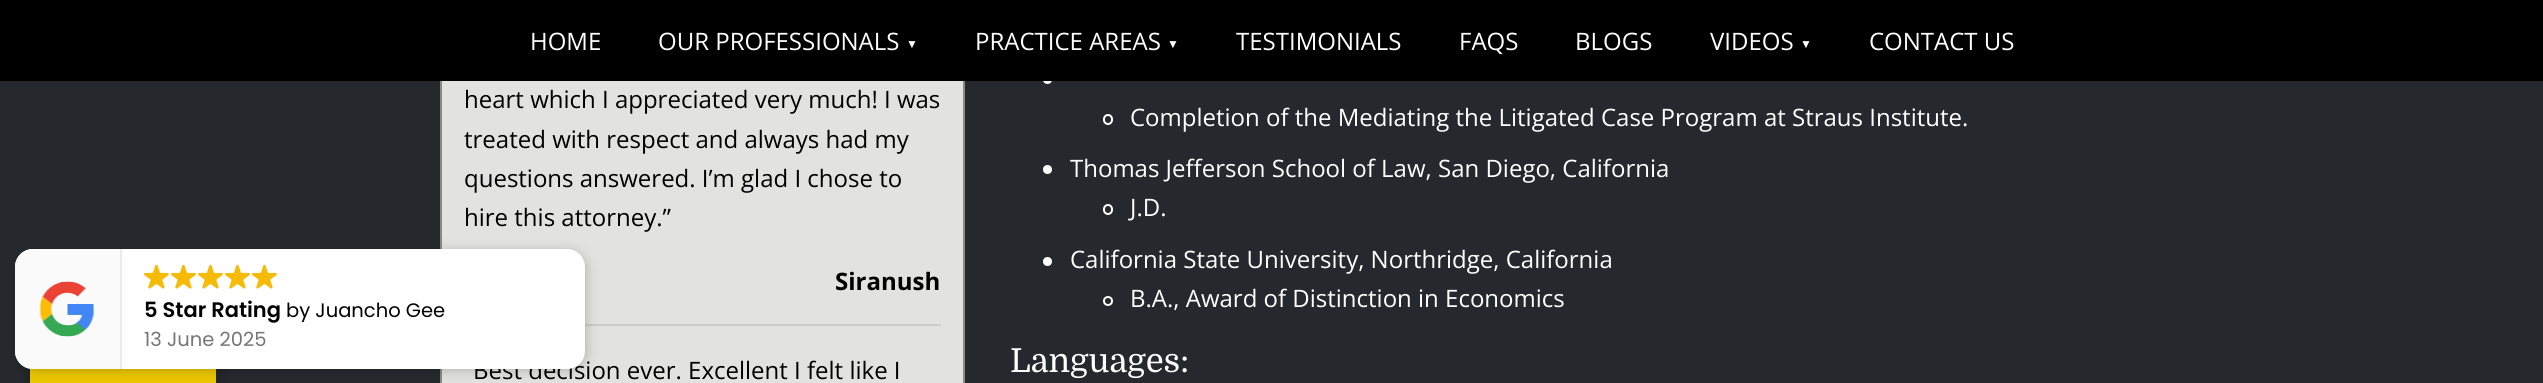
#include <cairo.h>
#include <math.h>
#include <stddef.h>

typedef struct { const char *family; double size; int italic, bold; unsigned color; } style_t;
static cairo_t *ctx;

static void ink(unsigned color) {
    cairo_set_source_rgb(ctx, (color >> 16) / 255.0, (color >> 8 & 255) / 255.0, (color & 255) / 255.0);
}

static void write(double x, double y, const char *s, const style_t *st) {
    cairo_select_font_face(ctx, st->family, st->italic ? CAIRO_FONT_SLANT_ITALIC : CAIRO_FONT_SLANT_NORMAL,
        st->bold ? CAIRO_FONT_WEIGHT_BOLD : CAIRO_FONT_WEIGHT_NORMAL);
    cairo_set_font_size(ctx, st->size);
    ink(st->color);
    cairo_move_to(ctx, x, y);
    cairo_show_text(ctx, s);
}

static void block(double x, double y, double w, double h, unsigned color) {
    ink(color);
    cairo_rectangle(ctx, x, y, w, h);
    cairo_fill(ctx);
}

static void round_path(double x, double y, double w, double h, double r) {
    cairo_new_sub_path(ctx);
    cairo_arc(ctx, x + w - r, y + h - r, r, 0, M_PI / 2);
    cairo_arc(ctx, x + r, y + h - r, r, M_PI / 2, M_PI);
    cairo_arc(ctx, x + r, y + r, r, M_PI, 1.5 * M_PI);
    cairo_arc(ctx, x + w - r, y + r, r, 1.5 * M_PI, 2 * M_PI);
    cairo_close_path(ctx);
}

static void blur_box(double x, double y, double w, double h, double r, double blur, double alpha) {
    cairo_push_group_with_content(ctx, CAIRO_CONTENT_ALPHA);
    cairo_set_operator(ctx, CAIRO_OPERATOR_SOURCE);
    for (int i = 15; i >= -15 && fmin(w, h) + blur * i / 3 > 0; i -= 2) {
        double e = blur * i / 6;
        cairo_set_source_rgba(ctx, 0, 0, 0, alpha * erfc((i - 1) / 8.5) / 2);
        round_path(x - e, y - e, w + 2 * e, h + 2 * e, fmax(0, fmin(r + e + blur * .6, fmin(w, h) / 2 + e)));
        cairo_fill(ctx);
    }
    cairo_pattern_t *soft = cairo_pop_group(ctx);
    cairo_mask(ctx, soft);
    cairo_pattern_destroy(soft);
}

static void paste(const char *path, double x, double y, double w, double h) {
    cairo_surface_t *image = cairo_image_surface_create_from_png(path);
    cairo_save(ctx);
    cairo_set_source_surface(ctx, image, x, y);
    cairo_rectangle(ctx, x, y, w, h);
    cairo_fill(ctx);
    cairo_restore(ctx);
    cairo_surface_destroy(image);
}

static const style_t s1 = {"Open Sans", 24, 0, 0, 0xffffff};
static const style_t s2 = {"Liberation Sans", 12, 0, 0, 0xffffff};
static const style_t s3 = {"Open Sans", 24, 0, 0, 0x000000};
static const style_t s4 = {"Poppins SemiBold", 21, 0, 0, 0x000000};
static const style_t s5 = {"Poppins", 19.5, 0, 0, 0x000000};
static const style_t s6 = {"Poppins", 19.5, 0, 0, 0x767676};
static const style_t s7 = {"Open Sans", 24, 0, 1, 0x000000};
static const style_t s8 = {"Domine", 33, 0, 0, 0xffffff};

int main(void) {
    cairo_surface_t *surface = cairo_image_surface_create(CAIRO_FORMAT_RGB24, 2543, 383);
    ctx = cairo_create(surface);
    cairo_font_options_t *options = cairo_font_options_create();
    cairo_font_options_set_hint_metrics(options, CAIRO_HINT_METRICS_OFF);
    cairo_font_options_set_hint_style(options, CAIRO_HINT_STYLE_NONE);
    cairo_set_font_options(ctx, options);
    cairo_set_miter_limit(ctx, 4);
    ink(0x25282d);
    cairo_paint(ctx);
    block(442, 81, 521, 302, 0xe2e2e0);
    cairo_rectangle(ctx, 441, -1, 523, 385);
    ink(0x878b83);
    cairo_stroke(ctx);
    ink(0xffffff);
    cairo_arc(ctx, 1047.5, 79.5, 4.5, 0, 2 * M_PI);
    cairo_fill(ctx);
    block(0, 0, 2543, 81, 0x000000);
    write(530, 50, "HOME", &s1);
    write(658, 50, "OUR PROFESSIONALS", &s1);
    write(906, 48, "▼", &s2);
    write(975, 50, "PRACTICE AREAS", &s1);
    write(1167, 48, "▼", &s2);
    write(1236, 50, "TESTIMONIALS", &s1);
    write(1459, 50, "FAQS", &s1);
    write(1575, 50, "BLOGS", &s1);
    write(1710, 50, "VIDEOS", &s1);
    write(1800, 48, "▼", &s2);
    write(1869, 50, "CONTACT US", &s1);
    ink(0x000000);
    blur_box(30, 332, 186, 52, 0, 7, 0.3);
    block(30, 368, 186, 15, 0xebc700);
    block(585, 324, 356, 2, 0xcccccc);
    ink(0x000000);
    blur_box(17, 251, 570, 120, 18, 6, 0.2);
    write(473, 379, "Best decision ever. Excellent I felt like I", &s3);
    ink(0xffffff);
    round_path(15, 249, 570, 120, 18);
    cairo_fill(ctx);
    ink(0xfafafa);
    cairo_new_path(ctx);
    cairo_move_to(ctx, 33, 249);
    cairo_line_to(ctx, 122, 249);
    cairo_line_to(ctx, 122, 369);
    cairo_line_to(ctx, 33, 369);
    cairo_curve_to(ctx, 23, 369, 15, 361, 15, 351);
    cairo_line_to(ctx, 15, 267);
    cairo_curve_to(ctx, 15, 257, 23, 249, 33, 249);
    cairo_close_path(ctx);
    cairo_fill(ctx);
    block(120, 249, 2, 120, 0xeaeaea);
    paste("pic1.png", 39, 281, 56, 56);
    paste("pic2.png", 144, 264, 25, 25);
    paste("pic2.png", 171, 264, 25, 25);
    paste("pic2.png", 198, 264, 25, 25);
    paste("pic2.png", 225, 264, 25, 25);
    paste("pic2.png", 252, 264, 25, 25);
    write(144, 317, "5 Star Rating", &s4);
    write(286, 317, "by Juancho Gee", &s5);
    write(144, 346, "13 June 2025", &s6);
    write(464, 108, "heart which I appreciated very much! I was", &s3);
    write(464, 148, "treated with respect and always had my", &s3);
    write(464, 187, "questions answered. I’m glad I chose to", &s3);
    write(464, 226, "hire this attorney.”", &s3);
    write(835, 290, "Siranush", &s7);
    round_path(1104, 115, 8, 9, 4);
    ink(0xffffff);
    cairo_stroke(ctx);
    write(1130, 126, "Completion of the Mediating the Litigated Case Program at Straus Institute.", &s1);
    cairo_new_path(ctx);
    cairo_arc(ctx, 1047.5, 169.5, 4.5, 0, 2 * M_PI);
    cairo_fill(ctx);
    write(1070, 177, "Thomas Jefferson School of Law, San Diego, California", &s1);
    round_path(1104, 205, 8, 9, 4);
    cairo_stroke(ctx);
    write(1130, 216, "J.D.", &s1);
    cairo_new_path(ctx);
    cairo_arc(ctx, 1047.5, 261.5, 4.5, 0, 2 * M_PI);
    cairo_fill(ctx);
    write(1070, 268, "California State University, Northridge, California", &s1);
    cairo_new_path(ctx);
    cairo_arc(ctx, 1108, 301, 4, 0, 2 * M_PI);
    cairo_stroke(ctx);
    write(1130, 307, "B.A., Award of Distinction in Economics", &s1);
    write(1010, 372, "Languages:", &s8);
    cairo_surface_write_to_png(surface, "screenshot.png");
    cairo_font_options_destroy(options);
    cairo_destroy(ctx);
    cairo_surface_destroy(surface);
    return 0;
}
